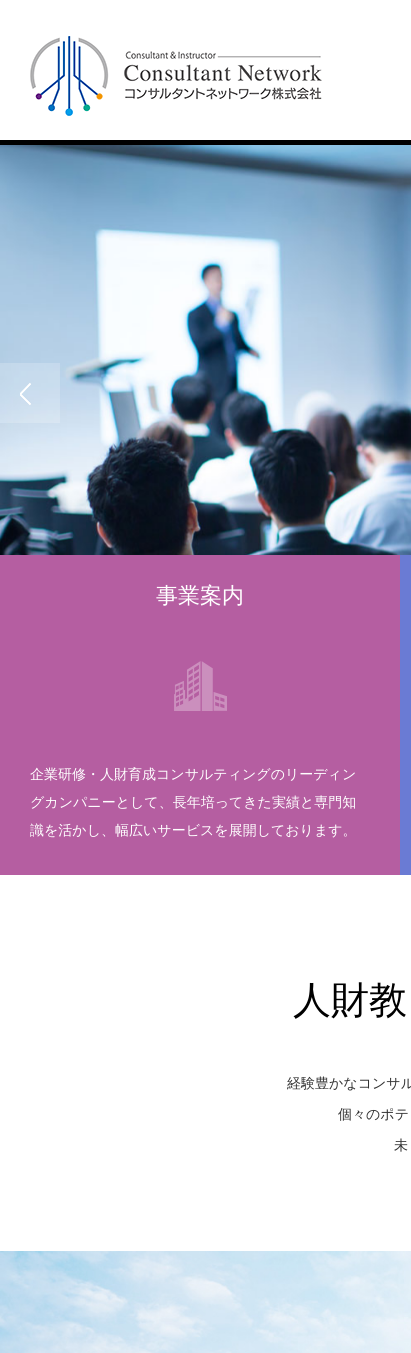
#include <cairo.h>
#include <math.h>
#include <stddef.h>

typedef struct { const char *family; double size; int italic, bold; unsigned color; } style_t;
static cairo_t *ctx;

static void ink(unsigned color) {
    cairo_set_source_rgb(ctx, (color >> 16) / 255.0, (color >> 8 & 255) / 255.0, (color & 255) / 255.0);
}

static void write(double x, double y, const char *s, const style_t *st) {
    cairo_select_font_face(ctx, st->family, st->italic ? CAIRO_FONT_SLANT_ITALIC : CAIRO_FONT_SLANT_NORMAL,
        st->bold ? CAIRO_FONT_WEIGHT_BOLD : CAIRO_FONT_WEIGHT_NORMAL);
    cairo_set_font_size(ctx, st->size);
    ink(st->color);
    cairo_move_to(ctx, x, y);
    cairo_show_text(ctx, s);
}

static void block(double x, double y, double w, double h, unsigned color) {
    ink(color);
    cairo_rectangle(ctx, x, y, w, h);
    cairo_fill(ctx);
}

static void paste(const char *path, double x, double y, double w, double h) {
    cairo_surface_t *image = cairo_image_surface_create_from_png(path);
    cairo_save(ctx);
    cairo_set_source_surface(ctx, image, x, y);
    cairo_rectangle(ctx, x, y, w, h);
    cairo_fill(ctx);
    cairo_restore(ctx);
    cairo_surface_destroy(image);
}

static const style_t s1 = {"WenQuanYi Zen Hei Medium", 22, 0, 0, 0xffffff};
static const style_t s2 = {"WenQuanYi Zen Hei Medium", 14, 0, 0, 0xffffff};
static const style_t s3 = {"WenQuanYi Zen Hei Medium", 38, 0, 0, 0x000000};
static const style_t s4 = {"WenQuanYi Zen Hei Medium", 14, 0, 0, 0x333333};

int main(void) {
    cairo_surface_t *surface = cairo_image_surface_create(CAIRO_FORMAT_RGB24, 411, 1353);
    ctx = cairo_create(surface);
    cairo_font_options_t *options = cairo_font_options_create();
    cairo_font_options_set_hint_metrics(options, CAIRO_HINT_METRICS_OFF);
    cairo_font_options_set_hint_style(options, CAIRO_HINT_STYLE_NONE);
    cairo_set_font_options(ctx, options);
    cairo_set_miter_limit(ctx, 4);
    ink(0xffffff);
    cairo_paint(ctx);
    block(0, 140, 411, 5, 0x000000);
    paste("pic1.png", 30, 36, 292, 80);
    paste("pic2.png", 0, 145, 411, 410);
    cairo_set_source_rgba(ctx, 1, 1, 1, 0.2);
    cairo_rectangle(ctx, 0, 363, 60, 60);
    cairo_fill(ctx);
    paste("pic3.png", 20, 383, 11, 22);
    block(0, 555, 400, 320, 0xb55ea1);
    write(156, 603, "事業案内", &s1);
    paste("pic4.png", 174, 661, 53, 50);
    write(30, 779, "企業研修・人財育成コンサルティングのリーディン", &s2);
    write(30, 807, "グカンパニーとして、長年培ってきた実績と専門知", &s2);
    write(30, 835, "識を活かし、幅広いサービスを展開しております。", &s2);
    block(400, 555, 11, 320, 0x6a7bd4);
    write(293, 1013, "人財教", &s3);
    write(287, 1088, "経験豊かなコンサル", &s4);
    write(338, 1119, "個々のポテ", &s4);
    write(394, 1150, "未", &s4);
    paste("pic5.png", 0, 1251, 411, 102);
    cairo_surface_write_to_png(surface, "screenshot.png");
    cairo_font_options_destroy(options);
    cairo_destroy(ctx);
    cairo_surface_destroy(surface);
    return 0;
}
